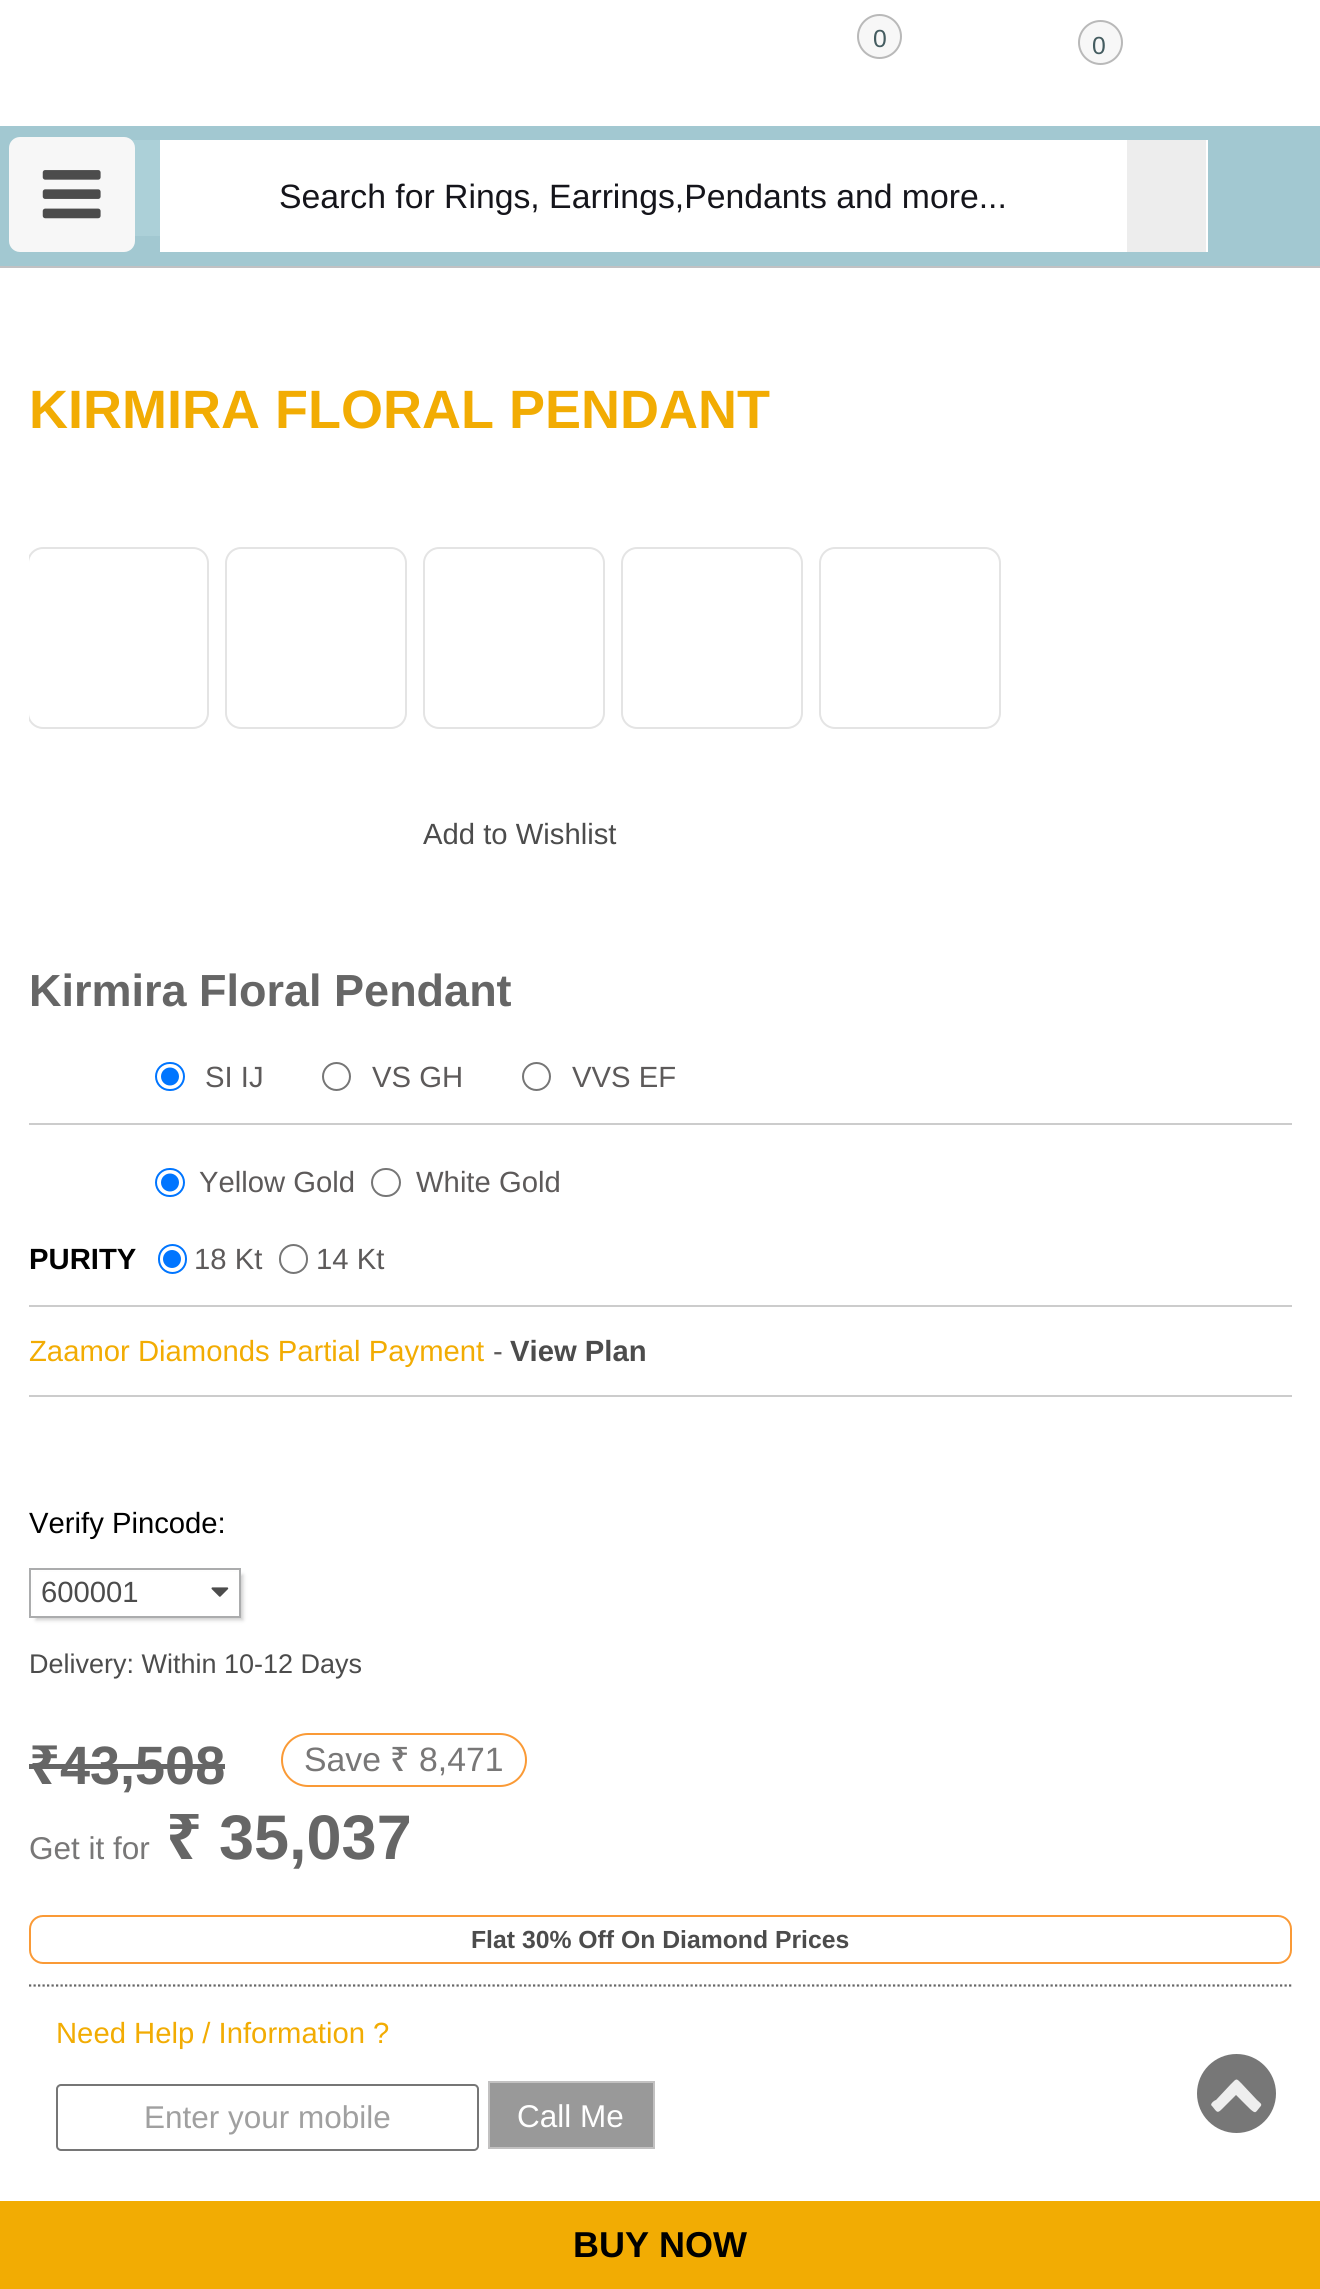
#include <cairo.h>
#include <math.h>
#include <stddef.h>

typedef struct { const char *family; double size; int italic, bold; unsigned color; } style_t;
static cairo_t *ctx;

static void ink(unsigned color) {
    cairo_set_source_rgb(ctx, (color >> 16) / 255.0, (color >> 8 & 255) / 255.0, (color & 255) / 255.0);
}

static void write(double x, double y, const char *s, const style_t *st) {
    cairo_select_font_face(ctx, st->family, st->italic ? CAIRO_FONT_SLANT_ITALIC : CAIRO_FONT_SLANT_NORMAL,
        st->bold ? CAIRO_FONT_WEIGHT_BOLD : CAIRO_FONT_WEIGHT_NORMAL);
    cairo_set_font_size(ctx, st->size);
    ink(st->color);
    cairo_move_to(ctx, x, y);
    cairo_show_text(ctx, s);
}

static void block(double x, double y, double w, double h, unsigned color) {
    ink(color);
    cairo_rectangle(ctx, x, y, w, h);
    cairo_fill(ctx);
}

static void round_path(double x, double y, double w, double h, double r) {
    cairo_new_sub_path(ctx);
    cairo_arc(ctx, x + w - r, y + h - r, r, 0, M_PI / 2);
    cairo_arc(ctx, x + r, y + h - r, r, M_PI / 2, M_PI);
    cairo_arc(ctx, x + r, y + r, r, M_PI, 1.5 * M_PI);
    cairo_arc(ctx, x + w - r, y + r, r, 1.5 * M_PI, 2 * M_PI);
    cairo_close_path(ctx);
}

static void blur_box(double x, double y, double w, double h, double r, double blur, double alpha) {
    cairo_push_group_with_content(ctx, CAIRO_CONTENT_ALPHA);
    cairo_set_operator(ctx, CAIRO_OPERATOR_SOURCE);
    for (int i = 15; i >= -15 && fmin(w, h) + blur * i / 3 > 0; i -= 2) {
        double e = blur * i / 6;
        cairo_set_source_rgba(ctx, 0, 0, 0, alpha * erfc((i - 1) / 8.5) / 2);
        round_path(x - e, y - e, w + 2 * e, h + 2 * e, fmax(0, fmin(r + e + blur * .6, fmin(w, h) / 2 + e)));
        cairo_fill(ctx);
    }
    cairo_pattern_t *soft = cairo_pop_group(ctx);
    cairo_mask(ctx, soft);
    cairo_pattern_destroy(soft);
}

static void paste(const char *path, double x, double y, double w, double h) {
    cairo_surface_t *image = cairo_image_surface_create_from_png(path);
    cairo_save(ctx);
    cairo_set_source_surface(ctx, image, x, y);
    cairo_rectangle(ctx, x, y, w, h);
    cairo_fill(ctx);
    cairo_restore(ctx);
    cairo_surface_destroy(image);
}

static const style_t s1 = {"Liberation Sans", 24.75, 0, 0, 0x445c60};
static const style_t s2 = {"Liberation Sans", 33.75, 0, 0, 0x15151b};
static const style_t s3 = {"Liberation Sans", 54, 0, 1, 0xf2ac03};
static const style_t s4 = {"Liberation Sans", 29.25, 0, 0, 0x4c4c4c};
static const style_t s5 = {"Liberation Sans", 45, 0, 1, 0x666666};
static const style_t s6 = {"Liberation Sans", 29.25, 0, 0, 0x5d5a5a};
static const style_t s7 = {"Liberation Sans", 29.25, 0, 1, 0x000000};
static const style_t s8 = {"Liberation Sans", 29.25, 0, 0, 0xf2ac03};
static const style_t s9 = {"Liberation Sans", 29.25, 0, 1, 0x4c4c4c};
static const style_t s10 = {"Liberation Sans", 29.25, 0, 0, 0x000000};
static const style_t s11 = {"Liberation Sans", 27, 0, 0, 0x4c4c4c};
static const style_t s12 = {"Noto Sans", 54, 0, 1, 0x666666};
static const style_t s13 = {"Liberation Sans", 54, 0, 1, 0x666666};
static const style_t s14 = {"Liberation Sans", 33.75, 0, 0, 0x787777};
static const style_t s15 = {"Noto Sans Medium", 33.75, 0, 0, 0x787777};
static const style_t s16 = {"Liberation Sans", 31.5, 0, 0, 0x787777};
static const style_t s17 = {"Noto Sans", 63, 0, 1, 0x666666};
static const style_t s18 = {"Liberation Sans", 63, 0, 1, 0x666666};
static const style_t s19 = {"Liberation Sans", 24.75, 0, 1, 0x4c4c4c};
static const style_t s20 = {"Liberation Sans", 36, 0, 1, 0x000000};
static const style_t s21 = {"Liberation Sans", 31.5, 0, 0, 0xa0a0a0};
static const style_t s22 = {"Liberation Sans", 31.5, 0, 0, 0xffffff};

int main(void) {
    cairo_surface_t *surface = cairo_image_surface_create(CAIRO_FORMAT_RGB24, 1320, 2289);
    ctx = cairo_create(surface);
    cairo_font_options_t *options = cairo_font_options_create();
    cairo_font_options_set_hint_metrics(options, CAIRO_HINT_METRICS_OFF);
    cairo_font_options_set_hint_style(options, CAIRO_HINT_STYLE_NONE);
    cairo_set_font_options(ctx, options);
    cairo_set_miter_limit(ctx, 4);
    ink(0xffffff);
    cairo_paint(ctx);
    block(0, 266, 1320, 2, 0xc1c1c3);
    ink(0xf7f7f7);
    cairo_arc(ctx, 879.5, 36.5, 21.5, 0, 2 * M_PI);
    cairo_fill_preserve(ctx);
    ink(0xb9b9b9);
    cairo_stroke(ctx);
    write(873, 47, "0", &s1);
    ink(0xf7f7f7);
    cairo_new_path(ctx);
    cairo_arc(ctx, 1100.5, 42.5, 21.5, 0, 2 * M_PI);
    cairo_fill_preserve(ctx);
    ink(0xb9b9b9);
    cairo_stroke(ctx);
    write(1092, 54, "0", &s1);
    block(0, 126, 1320, 140, 0xa2c8d1);
    block(131, 140, 29, 96, 0xacd0d8);
    ink(0xf7f7f7);
    round_path(9, 137, 126, 115, 11);
    cairo_fill(ctx);
    paste("pic1.png", 42, 170, 59, 49);
    block(160, 140, 1048, 112, 0xffffff);
    write(279, 208, "Search for Rings, Earrings,Pendants and more...", &s2);
    block(1127, 140, 79, 112, 0xededed);
    write(29, 428, "KIRMIRA FLORAL PENDANT", &s3);
    cairo_save(ctx);
    cairo_rectangle(ctx, 29, 547, 1022, 187);
    cairo_clip(ctx);
    round_path(28, 548, 180, 180, 15);
    ink(0xe4e4e4);
    cairo_stroke(ctx);
    cairo_restore(ctx);
    round_path(226, 548, 180, 180, 15);
    ink(0xe4e4e4);
    cairo_stroke(ctx);
    round_path(424, 548, 180, 180, 15);
    cairo_stroke(ctx);
    round_path(622, 548, 180, 180, 15);
    cairo_stroke(ctx);
    round_path(820, 548, 180, 180, 15);
    cairo_stroke(ctx);
    write(423, 844, "Add to Wishlist", &s4);
    write(29, 1006, "Kirmira Floral Pendant", &s5);
    block(29, 1123, 1263, 2, 0xcccccc);
    round_path(156, 1063, 28, 27, 13.5);
    ink(0x0075ff);
    cairo_stroke(ctx);
    cairo_arc(ctx, 170, 1076.5, 9, 0, 2 * M_PI);
    cairo_fill(ctx);
    write(205, 1087, "SI IJ", &s6);
    cairo_new_path(ctx);
    cairo_arc(ctx, 336.5, 1076.5, 13.5, 0, 2 * M_PI);
    ink(0x767676);
    cairo_stroke(ctx);
    write(372, 1087, "VS GH", &s6);
    cairo_new_path(ctx);
    cairo_arc(ctx, 536.5, 1076.5, 13.5, 0, 2 * M_PI);
    ink(0x767676);
    cairo_stroke(ctx);
    write(572, 1087, "VVS EF", &s6);
    block(29, 1305, 1263, 2, 0xcccccc);
    round_path(156, 1169, 28, 27, 13.5);
    ink(0x0075ff);
    cairo_stroke(ctx);
    cairo_arc(ctx, 170, 1182.5, 9, 0, 2 * M_PI);
    cairo_fill(ctx);
    write(199, 1192, "Yellow Gold", &s6);
    round_path(372, 1169, 28, 27, 13.5);
    ink(0x767676);
    cairo_stroke(ctx);
    write(416, 1192, "White Gold", &s6);
    write(29, 1269, "PURITY", &s7);
    round_path(159, 1245, 27, 28, 13.5);
    ink(0x0075ff);
    cairo_stroke(ctx);
    cairo_arc(ctx, 172, 1259, 9, 0, 2 * M_PI);
    cairo_fill(ctx);
    write(194, 1269, "18 Kt", &s6);
    round_path(280, 1245, 27, 28, 13.5);
    ink(0x767676);
    cairo_stroke(ctx);
    write(316, 1269, "14 Kt", &s6);
    block(29, 1395, 1263, 2, 0xcccccc);
    write(29, 1361, "Zaamor Diamonds Partial Payment", &s8);
    write(493, 1361, "-", &s6);
    write(510, 1361, "View Plan", &s9);
    write(29, 1533, "Verify Pincode:", &s10);
    ink(0xcccccc);
    blur_box(36, 1575, 207, 45, 0, 2, 1);
    block(33, 1572, 206, 44, 0xffffff);
    cairo_rectangle(ctx, 30, 1569, 210, 48);
    ink(0xabacad);
    cairo_stroke(ctx);
    write(41, 1602, "600001", &s4);
    paste("pic2.png", 211, 1587, 18, 10);
    write(29, 1673, "Delivery: Within 10-12 Days", &s11);
    write(29, 1784, "₹", &s12);
    block(29, 1764, 196, 5, 0x666666);
    write(60, 1784, "43,508", &s13);
    round_path(282, 1734, 244, 52, 26);
    ink(0xfa9a36);
    cairo_stroke(ctx);
    write(304, 1771, "Save", &s14);
    write(390, 1771, "₹", &s15);
    write(419, 1771, "8,471", &s14);
    write(29, 1859, "Get it for", &s16);
    write(166, 1859, "₹", &s17);
    write(219, 1859, "35,037", &s18);
    round_path(30, 1916, 1261, 47, 13);
    ink(0xfa9a36);
    cairo_stroke(ctx);
    write(471, 1948, "Flat 30% Off On Diamond Prices", &s19);
    block(0, 2201, 1320, 88, 0xf2ac03);
    write(573, 2257, "BUY NOW", &s20);
    cairo_new_path(ctx);
    cairo_move_to(ctx, 29, 1985.5);
    cairo_line_to(ctx, 1291.5, 1985.5);
    ink(0x666666);
    cairo_set_line_width(ctx, 2.2);
    cairo_set_dash(ctx, (double[]){2.25, 2.25}, 2, 0);
    cairo_stroke(ctx);
    write(56, 2043, "Need Help / Information ?", &s8);
    round_path(57, 2085, 421, 65, 4);
    ink(0x767676);
    cairo_set_line_width(ctx, 2);
    cairo_set_dash(ctx, NULL, 0, 0);
    cairo_stroke(ctx);
    write(144, 2128, "Enter your mobile", &s21);
    ink(0x999999);
    cairo_rectangle(ctx, 489, 2082, 165, 66);
    cairo_fill_preserve(ctx);
    ink(0xc2c1c1);
    cairo_stroke(ctx);
    write(517, 2127, "Call Me", &s22);
    ink(0x777777);
    cairo_new_path(ctx);
    cairo_arc(ctx, 1236.5, 2093.5, 39.5, 0, 2 * M_PI);
    cairo_fill(ctx);
    ink(0xeeeeee);
    cairo_new_path(ctx);
    cairo_move_to(ctx, 1212, 2106);
    cairo_curve_to(ctx, 1209, 2104, 1215, 2100, 1216, 2100);
    cairo_line_to(ctx, 1231, 2084);
    cairo_curve_to(ctx, 1237, 2078, 1236, 2078, 1242, 2084);
    cairo_line_to(ctx, 1257, 2100);
    cairo_curve_to(ctx, 1260, 2103, 1263, 2104, 1260, 2107);
    cairo_curve_to(ctx, 1255, 2113, 1256, 2114, 1250, 2109);
    cairo_line_to(ctx, 1236, 2095);
    cairo_line_to(ctx, 1222, 2109);
    cairo_curve_to(ctx, 1217, 2114, 1217, 2112, 1212, 2106);
    cairo_close_path(ctx);
    cairo_fill(ctx);
    cairo_surface_write_to_png(surface, "screenshot.png");
    cairo_font_options_destroy(options);
    cairo_destroy(ctx);
    cairo_surface_destroy(surface);
    return 0;
}
